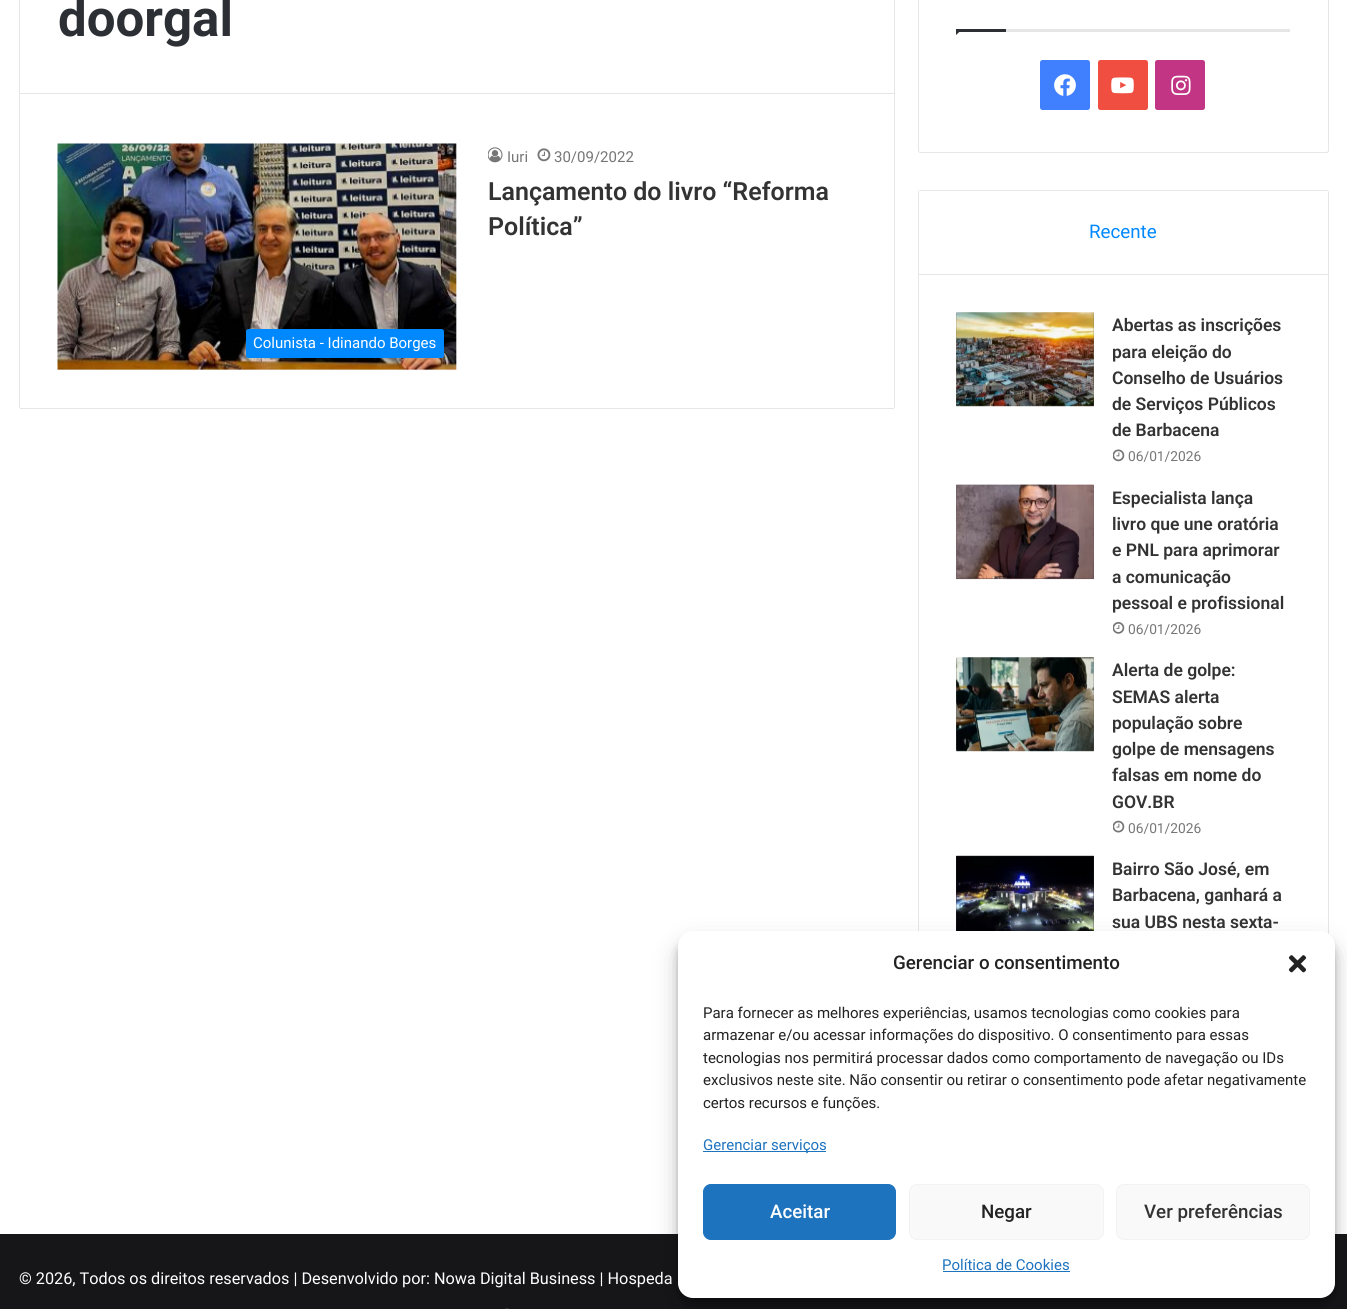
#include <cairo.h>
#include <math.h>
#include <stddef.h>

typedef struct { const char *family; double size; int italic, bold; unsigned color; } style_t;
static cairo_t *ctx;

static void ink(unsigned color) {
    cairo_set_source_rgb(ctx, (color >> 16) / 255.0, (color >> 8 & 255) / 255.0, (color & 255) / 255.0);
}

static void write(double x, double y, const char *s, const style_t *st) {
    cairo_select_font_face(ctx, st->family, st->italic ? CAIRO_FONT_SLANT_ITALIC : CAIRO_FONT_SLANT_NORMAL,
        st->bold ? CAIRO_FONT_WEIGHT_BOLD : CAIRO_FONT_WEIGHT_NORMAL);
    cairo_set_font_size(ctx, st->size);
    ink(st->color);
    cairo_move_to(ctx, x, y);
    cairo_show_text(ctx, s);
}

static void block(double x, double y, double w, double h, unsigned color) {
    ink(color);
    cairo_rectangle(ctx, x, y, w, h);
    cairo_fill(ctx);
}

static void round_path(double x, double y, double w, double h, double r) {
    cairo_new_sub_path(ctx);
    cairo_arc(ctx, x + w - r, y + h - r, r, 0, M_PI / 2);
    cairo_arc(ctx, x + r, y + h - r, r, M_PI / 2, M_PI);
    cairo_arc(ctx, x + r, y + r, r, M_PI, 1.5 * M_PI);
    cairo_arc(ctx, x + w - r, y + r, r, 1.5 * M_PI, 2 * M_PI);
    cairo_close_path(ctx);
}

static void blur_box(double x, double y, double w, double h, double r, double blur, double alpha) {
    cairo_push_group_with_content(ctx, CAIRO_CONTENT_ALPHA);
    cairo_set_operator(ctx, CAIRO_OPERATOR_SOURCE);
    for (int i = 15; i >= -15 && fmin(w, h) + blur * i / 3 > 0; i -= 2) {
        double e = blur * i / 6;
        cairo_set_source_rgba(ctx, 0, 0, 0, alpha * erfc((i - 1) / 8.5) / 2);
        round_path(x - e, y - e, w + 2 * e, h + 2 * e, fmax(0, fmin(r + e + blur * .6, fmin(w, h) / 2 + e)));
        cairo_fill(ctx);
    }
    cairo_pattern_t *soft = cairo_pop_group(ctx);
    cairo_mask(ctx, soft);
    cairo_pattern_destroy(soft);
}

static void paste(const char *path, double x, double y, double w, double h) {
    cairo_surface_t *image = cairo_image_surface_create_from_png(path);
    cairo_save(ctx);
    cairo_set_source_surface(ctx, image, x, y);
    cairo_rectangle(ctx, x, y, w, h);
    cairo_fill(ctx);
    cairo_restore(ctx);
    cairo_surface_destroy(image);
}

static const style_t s1 = {"Roboto", 51, 0, 1, 0x2c2f34};
static const style_t s2 = {"Roboto", 15, 0, 0, 0x767676};
static const style_t s3 = {"Roboto SemiBold", 25, 0, 0, 0x333333};
static const style_t s4 = {"Roboto", 15, 0, 0, 0xffffff};
static const style_t s5 = {"Roboto", 18.75, 0, 0, 0x0088ff};
static const style_t s6 = {"Roboto SemiBold", 17.5, 0, 0, 0x333333};
static const style_t s7 = {"Roboto", 13.75, 0, 0, 0x767676};
static const style_t s8 = {"Roboto", 16.25, 0, 0, 0xffffff};
static const style_t s9 = {"Roboto Medium", 18.75, 0, 0, 0x222222};
static const style_t s10 = {"Roboto", 15, 0, 0, 0x222222};
static const style_t s11 = {"Roboto", 15, 0, 0, 0x1e73be};
static const style_t s12 = {"Roboto Medium", 18.75, 0, 0, 0xffffff};
static const style_t s13 = {"Roboto Medium", 18.75, 0, 0, 0x333333};

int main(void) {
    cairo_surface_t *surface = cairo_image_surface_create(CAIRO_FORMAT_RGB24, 1347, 1309);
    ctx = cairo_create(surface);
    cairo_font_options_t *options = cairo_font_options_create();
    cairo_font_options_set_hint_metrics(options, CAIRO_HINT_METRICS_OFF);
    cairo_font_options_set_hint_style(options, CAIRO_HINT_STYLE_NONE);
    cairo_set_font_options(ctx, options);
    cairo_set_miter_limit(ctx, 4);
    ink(0xffffff);
    cairo_paint(ctx);
    cairo_rectangle(ctx, 19.5, -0.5, 875, 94);
    ink(0xe6e6e6);
    cairo_set_line_width(ctx, 1);
    cairo_stroke(ctx);
    write(58, 36, "doorgal", &s1);
    block(894, 94, 1, 314, 0xe6e6e6);
    block(20, 408, 874, 1, 0xe6e6e6);
    block(19, 94, 1, 314, 0xe6e6e6);
    paste("pic1.png", 488, 147, 15, 16);
    write(507, 162, "Iuri", &s2);
    paste("pic2.png", 537, 148, 14, 14);
    write(554, 162, "30/09/2022", &s2);
    write(488, 200, "Lançamento do livro “Reforma", &s3);
    write(488, 235, "Política”", &s3);
    paste("pic3.png", 57, 143, 400, 227);
    ink(0x0088ff);
    round_path(246, 329, 198, 29, 2.5);
    cairo_fill(ctx);
    write(253, 348, "Colunista - Idinando Borges", &s4);
    round_path(918.5, -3.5, 410, 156, 2);
    ink(0xe6e6e6);
    cairo_stroke(ctx);
    block(1006, 29, 284, 3, 0xe6e6e6);
    ink(0x2c2f34);
    cairo_new_path(ctx);
    cairo_move_to(ctx, 956, 29);
    cairo_line_to(ctx, 962.5, 29);
    cairo_line_to(ctx, 956, 35);
    cairo_close_path(ctx);
    cairo_fill(ctx);
    block(956, 29, 50, 3, 0x2c2f34);
    ink(0x4080ff);
    round_path(1040, 60, 50, 50, 2.5);
    cairo_fill(ctx);
    paste("pic4.png", 1054, 74, 22, 22);
    ink(0xef4e41);
    round_path(1098, 60, 50, 50, 2.5);
    cairo_fill(ctx);
    paste("pic5.png", 1111, 77, 23, 17);
    ink(0xc13584);
    round_path(1155, 60, 50, 50, 2.5);
    cairo_fill(ctx);
    paste("pic6.png", 1171, 75, 20, 20);
    round_path(918.5, 190.5, 410, 979, 2);
    ink(0xe6e6e6);
    cairo_stroke(ctx);
    block(919, 274, 409, 1, 0xe6e6e6);
    block(919, 191, 409, 1, 0xffffff);
    write(1089, 238, "Recente", &s5);
    block(956, 313, 138, 93, 0x7e715b);
    paste("pic7.png", 956, 312, 138, 95);
    write(1112, 331, "Abertas as inscrições", &s6);
    write(1112, 358, "para eleição do", &s6);
    write(1112, 384, "Conselho de Usuários", &s6);
    write(1112, 410, "de Serviços Públicos", &s6);
    write(1112, 436, "de Barbacena", &s6);
    paste("pic8.png", 1113, 449, 12, 13);
    write(1128, 461, "06/01/2026", &s7);
    block(956, 485, 138, 94, 0x685052);
    paste("pic9.png", 956, 484, 138, 96);
    write(1112, 504, "Especialista lança", &s6);
    write(1112, 530, "livro que une oratória", &s6);
    write(1112, 556, "e PNL para aprimorar", &s6);
    write(1112, 583, "a comunicação", &s6);
    write(1112, 609, "pessoal e profissional", &s6);
    paste("pic10.png", 1113, 622, 12, 12);
    write(1128, 634, "06/01/2026", &s7);
    block(956, 658, 138, 93, 0x5a5e55);
    paste("pic11.png", 956, 657, 138, 95);
    write(1112, 676, "Alerta de golpe:", &s6);
    write(1112, 703, "SEMAS alerta", &s6);
    write(1112, 729, "população sobre", &s6);
    write(1112, 755, "golpe de mensagens", &s6);
    write(1112, 781, "falsas em nome do", &s6);
    write(1112, 808, "GOV.BR", &s6);
    paste("pic12.png", 1113, 820, 12, 13);
    write(1128, 833, "06/01/2026", &s7);
    block(956, 856, 138, 75, 0x27292f);
    paste("pic13.png", 956, 855, 138, 76);
    write(1112, 875, "Bairro São José, em", &s6);
    write(1112, 901, "Barbacena, ganhará a", &s6);
    write(1112, 928, "sua UBS nesta sexta-", &s6);
    block(0, 1234, 1347, 75, 0x161619);
    write(19, 1284, "© 2026, Todos os direitos reservados | Desenvolvido por: Nowa Digital Business | Hospeda", &s8);
    paste("pic14.png", 505, 1308, 4, 1);
    ink(0x000000);
    blur_box(678, 939, 657, 366, 15, 4, 0.23);
    blur_box(678, 944, 657, 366, 15, 12.5, 0.19);
    ink(0xffffff);
    round_path(678, 931, 657, 367, 15);
    cairo_fill(ctx);
    write(893, 969, "Gerenciar o consentimento", &s9);
    paste("pic15.png", 1288, 955, 19, 18);
    write(703, 1018, "Para fornecer as melhores experiências, usamos tecnologias como cookies para", &s10);
    write(703, 1040, "armazenar e/ou acessar informações do dispositivo. O consentimento para essas", &s10);
    write(703, 1063, "tecnologias nos permitirá processar dados como comportamento de navegação ou IDs", &s10);
    write(703, 1085, "exclusivos neste site. Não consentir ou retirar o consentimento pode afetar negativamente", &s10);
    write(703, 1108, "certos recursos e funções.", &s10);
    block(703, 1151, 123, 1, 0x1e73be);
    write(703, 1150, "Gerenciar serviços", &s11);
    round_path(703.5, 1184.5, 192, 55, 7.5);
    cairo_fill_preserve(ctx);
    cairo_stroke(ctx);
    write(770, 1218, "Aceitar", &s12);
    ink(0xf9f9f9);
    round_path(909.5, 1184.5, 194, 55, 7.5);
    cairo_fill_preserve(ctx);
    ink(0xf2f2f2);
    cairo_stroke(ctx);
    write(981, 1218, "Negar", &s9);
    ink(0xf9f9f9);
    round_path(1116.5, 1184.5, 193, 55, 7.5);
    cairo_fill_preserve(ctx);
    ink(0xf2f2f2);
    cairo_stroke(ctx);
    write(1144, 1218, "Ver preferências", &s13);
    write(942, 1270, "Política de Cookies", &s11);
    block(943, 1271, 127, 1, 0x1e73be);
    cairo_surface_write_to_png(surface, "screenshot.png");
    cairo_font_options_destroy(options);
    cairo_destroy(ctx);
    cairo_surface_destroy(surface);
    return 0;
}
